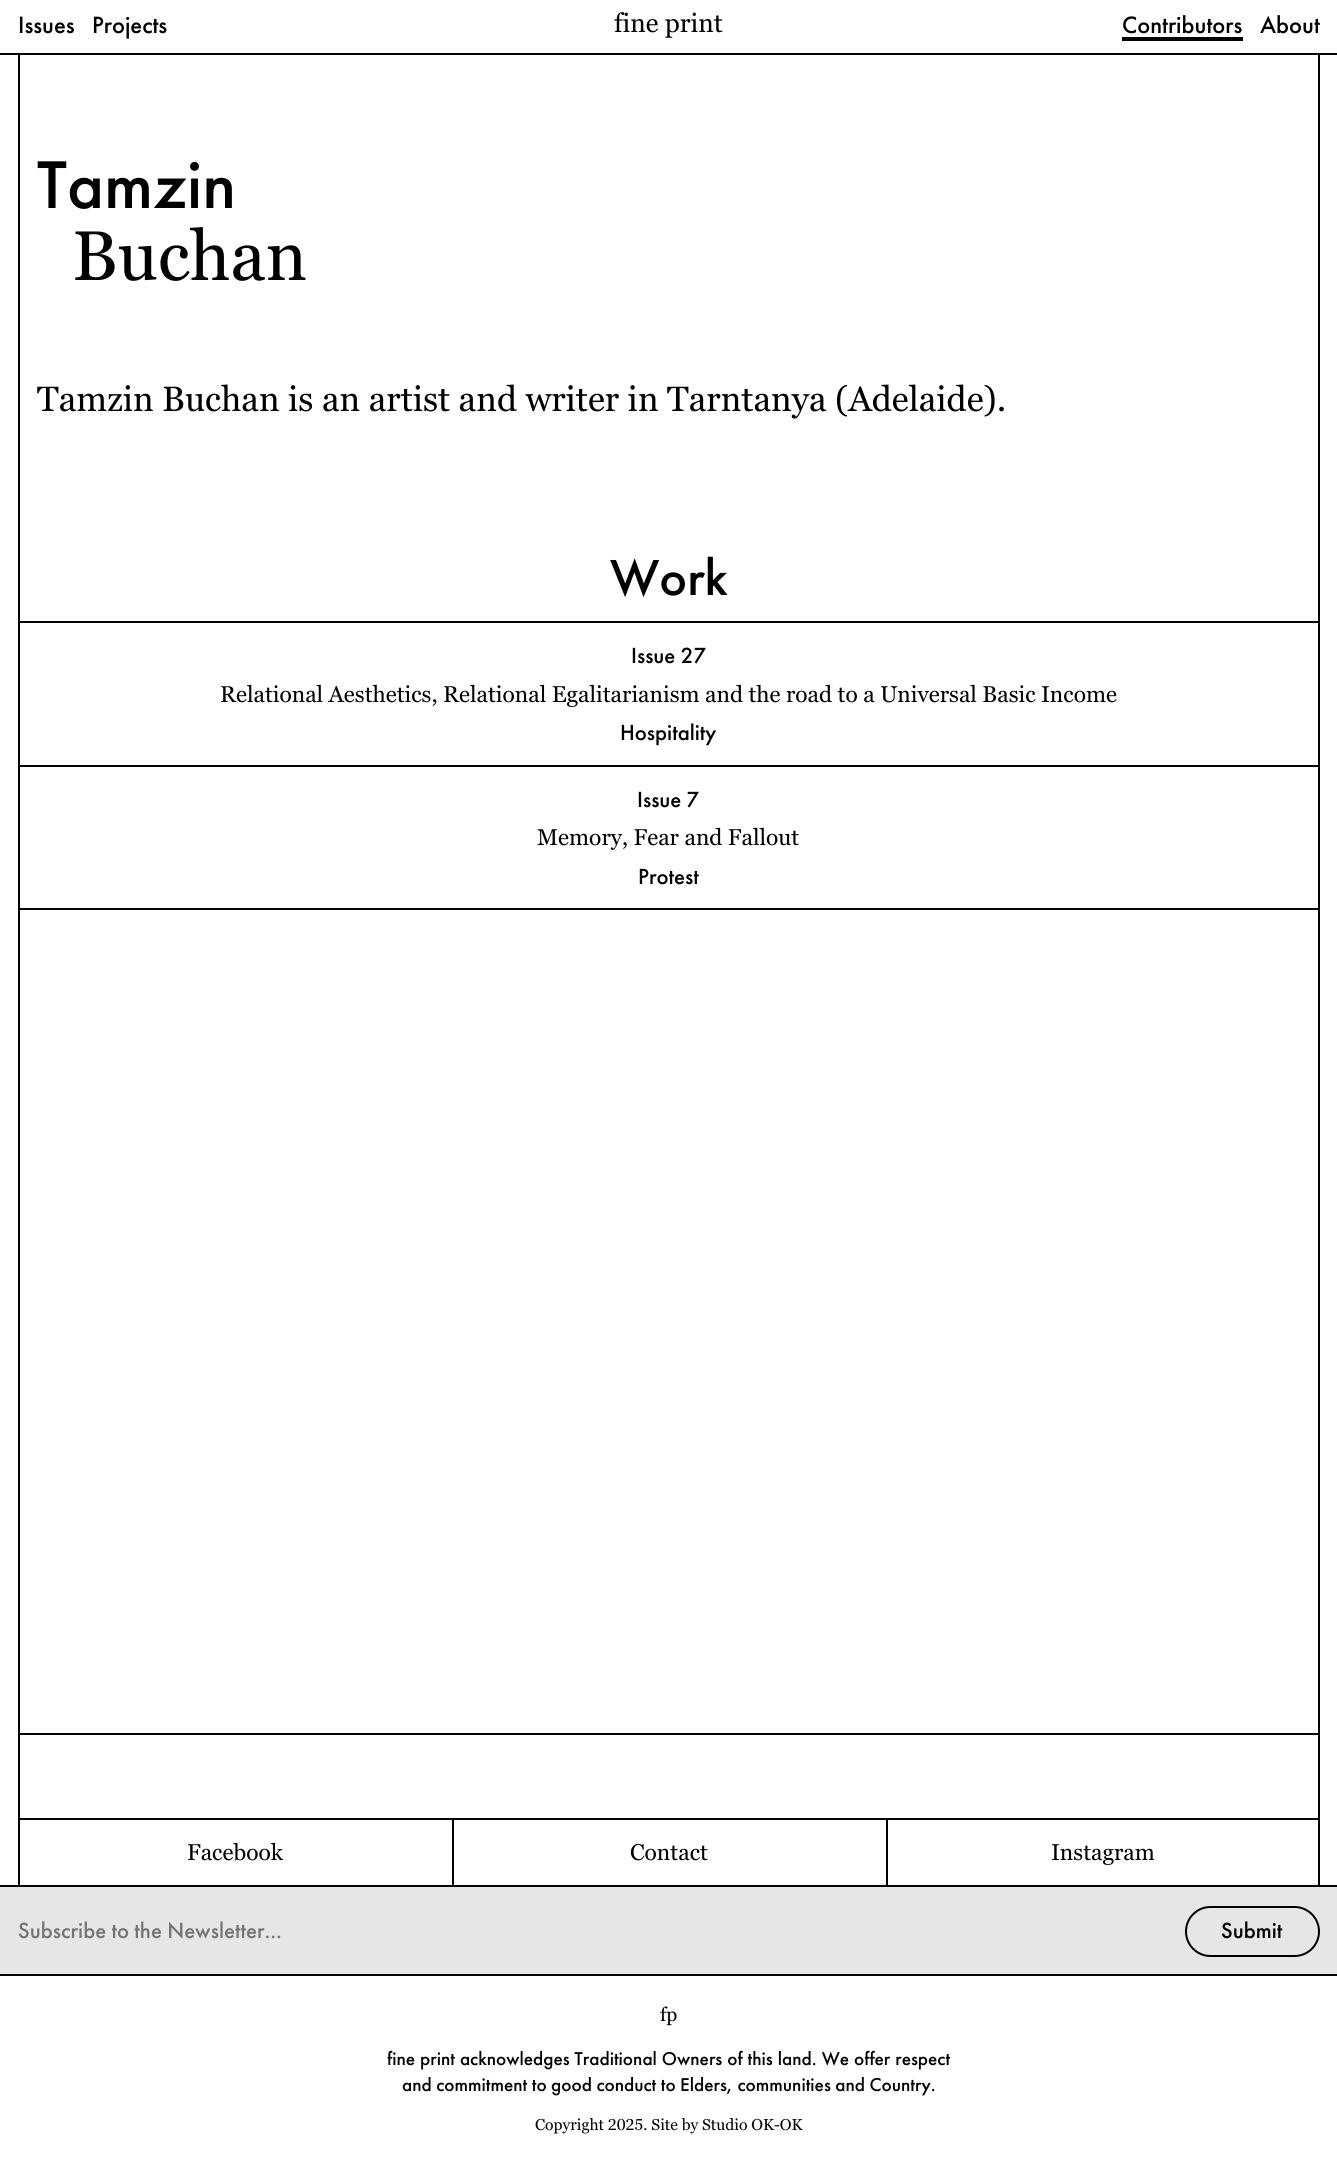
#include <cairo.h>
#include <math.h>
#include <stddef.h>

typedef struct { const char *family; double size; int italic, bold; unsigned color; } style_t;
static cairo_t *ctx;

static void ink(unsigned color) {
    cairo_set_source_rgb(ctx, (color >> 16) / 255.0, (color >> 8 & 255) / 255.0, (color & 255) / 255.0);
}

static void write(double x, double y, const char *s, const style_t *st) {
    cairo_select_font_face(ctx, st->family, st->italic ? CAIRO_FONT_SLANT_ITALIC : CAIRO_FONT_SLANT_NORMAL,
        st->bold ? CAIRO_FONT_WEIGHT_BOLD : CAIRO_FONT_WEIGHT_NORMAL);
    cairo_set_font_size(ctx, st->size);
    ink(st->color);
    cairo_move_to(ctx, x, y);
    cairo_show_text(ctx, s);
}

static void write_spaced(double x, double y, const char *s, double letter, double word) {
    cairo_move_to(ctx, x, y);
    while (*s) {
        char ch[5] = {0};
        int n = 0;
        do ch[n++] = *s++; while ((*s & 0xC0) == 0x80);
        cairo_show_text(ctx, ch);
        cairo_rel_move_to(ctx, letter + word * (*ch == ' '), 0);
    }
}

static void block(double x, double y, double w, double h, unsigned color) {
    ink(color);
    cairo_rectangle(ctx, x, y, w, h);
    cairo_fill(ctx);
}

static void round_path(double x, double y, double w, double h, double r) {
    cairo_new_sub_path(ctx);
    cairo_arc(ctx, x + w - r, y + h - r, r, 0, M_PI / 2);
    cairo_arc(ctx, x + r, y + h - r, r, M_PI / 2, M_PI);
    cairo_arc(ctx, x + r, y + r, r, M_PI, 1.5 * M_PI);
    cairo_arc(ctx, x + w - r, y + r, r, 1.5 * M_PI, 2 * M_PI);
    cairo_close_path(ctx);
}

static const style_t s1 = {"Futura PT Medium", 24.5, 0, 0, 0x000000};
static const style_t s2 = {"Georgia", 26.25, 0, 0, 0x000000};
static const style_t s3 = {"Futura PT Medium", 70, 0, 0, 0x000000};
static const style_t s4 = {"Georgia", 70, 0, 0, 0x000000};
static const style_t s5 = {"Georgia", 35, 0, 0, 0x000000};
static const style_t s6 = {"Futura PT Medium", 52.5, 0, 0, 0x000000};
static const style_t s7 = {"Futura PT Medium", 22.75, 0, 0, 0x000000};
static const style_t s8 = {"Georgia", 22.75, 0, 0, 0x000000};
static const style_t s9 = {"Futura PT Medium", 22.75, 0, 0, 0x737373};
static const style_t s10 = {"Georgia", 19.25, 0, 0, 0x000000};
static const style_t s11 = {"Futura PT Medium", 19.25, 0, 0, 0x000000};
static const style_t s12 = {"Georgia", 15.75, 0, 0, 0x000000};

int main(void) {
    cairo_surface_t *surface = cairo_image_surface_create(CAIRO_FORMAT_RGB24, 1337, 2160);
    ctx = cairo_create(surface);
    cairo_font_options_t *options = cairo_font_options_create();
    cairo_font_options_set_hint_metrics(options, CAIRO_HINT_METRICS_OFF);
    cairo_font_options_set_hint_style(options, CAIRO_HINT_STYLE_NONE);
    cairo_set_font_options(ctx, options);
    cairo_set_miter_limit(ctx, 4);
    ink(0xffffff);
    cairo_paint(ctx);
    block(1318, 54, 2, 1679, 0x000000);
    block(18, 54, 2, 1679, 0x000000);
    block(0, 53, 1337, 2, 0x000000);
    write(18, 33, "Issues", &s1);
    write(92, 33, "Projects", &s1);
    write(614, 32, "fine print", &s2);
    block(1122, 37, 121, 4, 0x000000);
    write(1122, 33, "Contributors", &s1);
    write(1260, 33, "About", &s1);
    write(37, 208, "Tamzin", &s3);
    write(72, 280, "Buchan", &s4);
    write(37, 411, "Tamzin Buchan is an artist and writer in Tarntanya (Adelaide).", &s5);
    write(610, 595, "Work", &s6);
    block(19, 621, 1299, 2, 0x000000);
    block(19, 765, 1299, 2, 0x000000);
    write(631, 663, "Issue 27", &s7);
    write(220, 702, "Relational Aesthetics, Relational Egalitarianism and the road to a Universal Basic Income", &s8);
    write(620, 740, "Hospitality", &s7);
    block(19, 908, 1299, 2, 0x000000);
    write(637, 807, "Issue 7", &s7);
    write(537, 845, "Memory, Fear and Fallout", &s8);
    write(638, 884, "Protest", &s7);
    cairo_rectangle(ctx, 19, 1734, 1300, 85);
    cairo_stroke(ctx);
    block(18, 1820, 2, 65, 0x000000);
    write(187, 1860, "Facebook", &s8);
    block(452, 1820, 2, 65, 0x000000);
    write(630, 1860, "Contact", &s8);
    block(1318, 1820, 2, 65, 0x000000);
    block(886, 1820, 2, 65, 0x000000);
    write(1051, 1860, "Instagram", &s8);
    block(0, 1887, 1337, 87, 0xe6e6e6);
    block(0, 1885, 1337, 2, 0x000000);
    write(18, 1938, "Subscribe to the Newsletter...", &s9);
    round_path(1186, 1907, 133, 49, 24.5);
    ink(0x000000);
    cairo_stroke(ctx);
    write(1221, 1938, "Submit", &s7);
    block(0, 1974, 1337, 2, 0x000000);
    write(660, 2021, "fp", &s10);
    cairo_select_font_face(ctx, "Futura PT Medium", CAIRO_FONT_SLANT_NORMAL, CAIRO_FONT_WEIGHT_NORMAL);
    write_spaced(387, 2065, "fine print acknowledges Traditional Owners of this land. We offer respect", 0, 0.5);
    write(402, 2091, "and commitment to good conduct to Elders, communities and Country.", &s11);
    write(535, 2130, "Copyright 2025. Site by Studio OK-OK", &s12);
    cairo_surface_write_to_png(surface, "screenshot.png");
    cairo_font_options_destroy(options);
    cairo_destroy(ctx);
    cairo_surface_destroy(surface);
    return 0;
}
